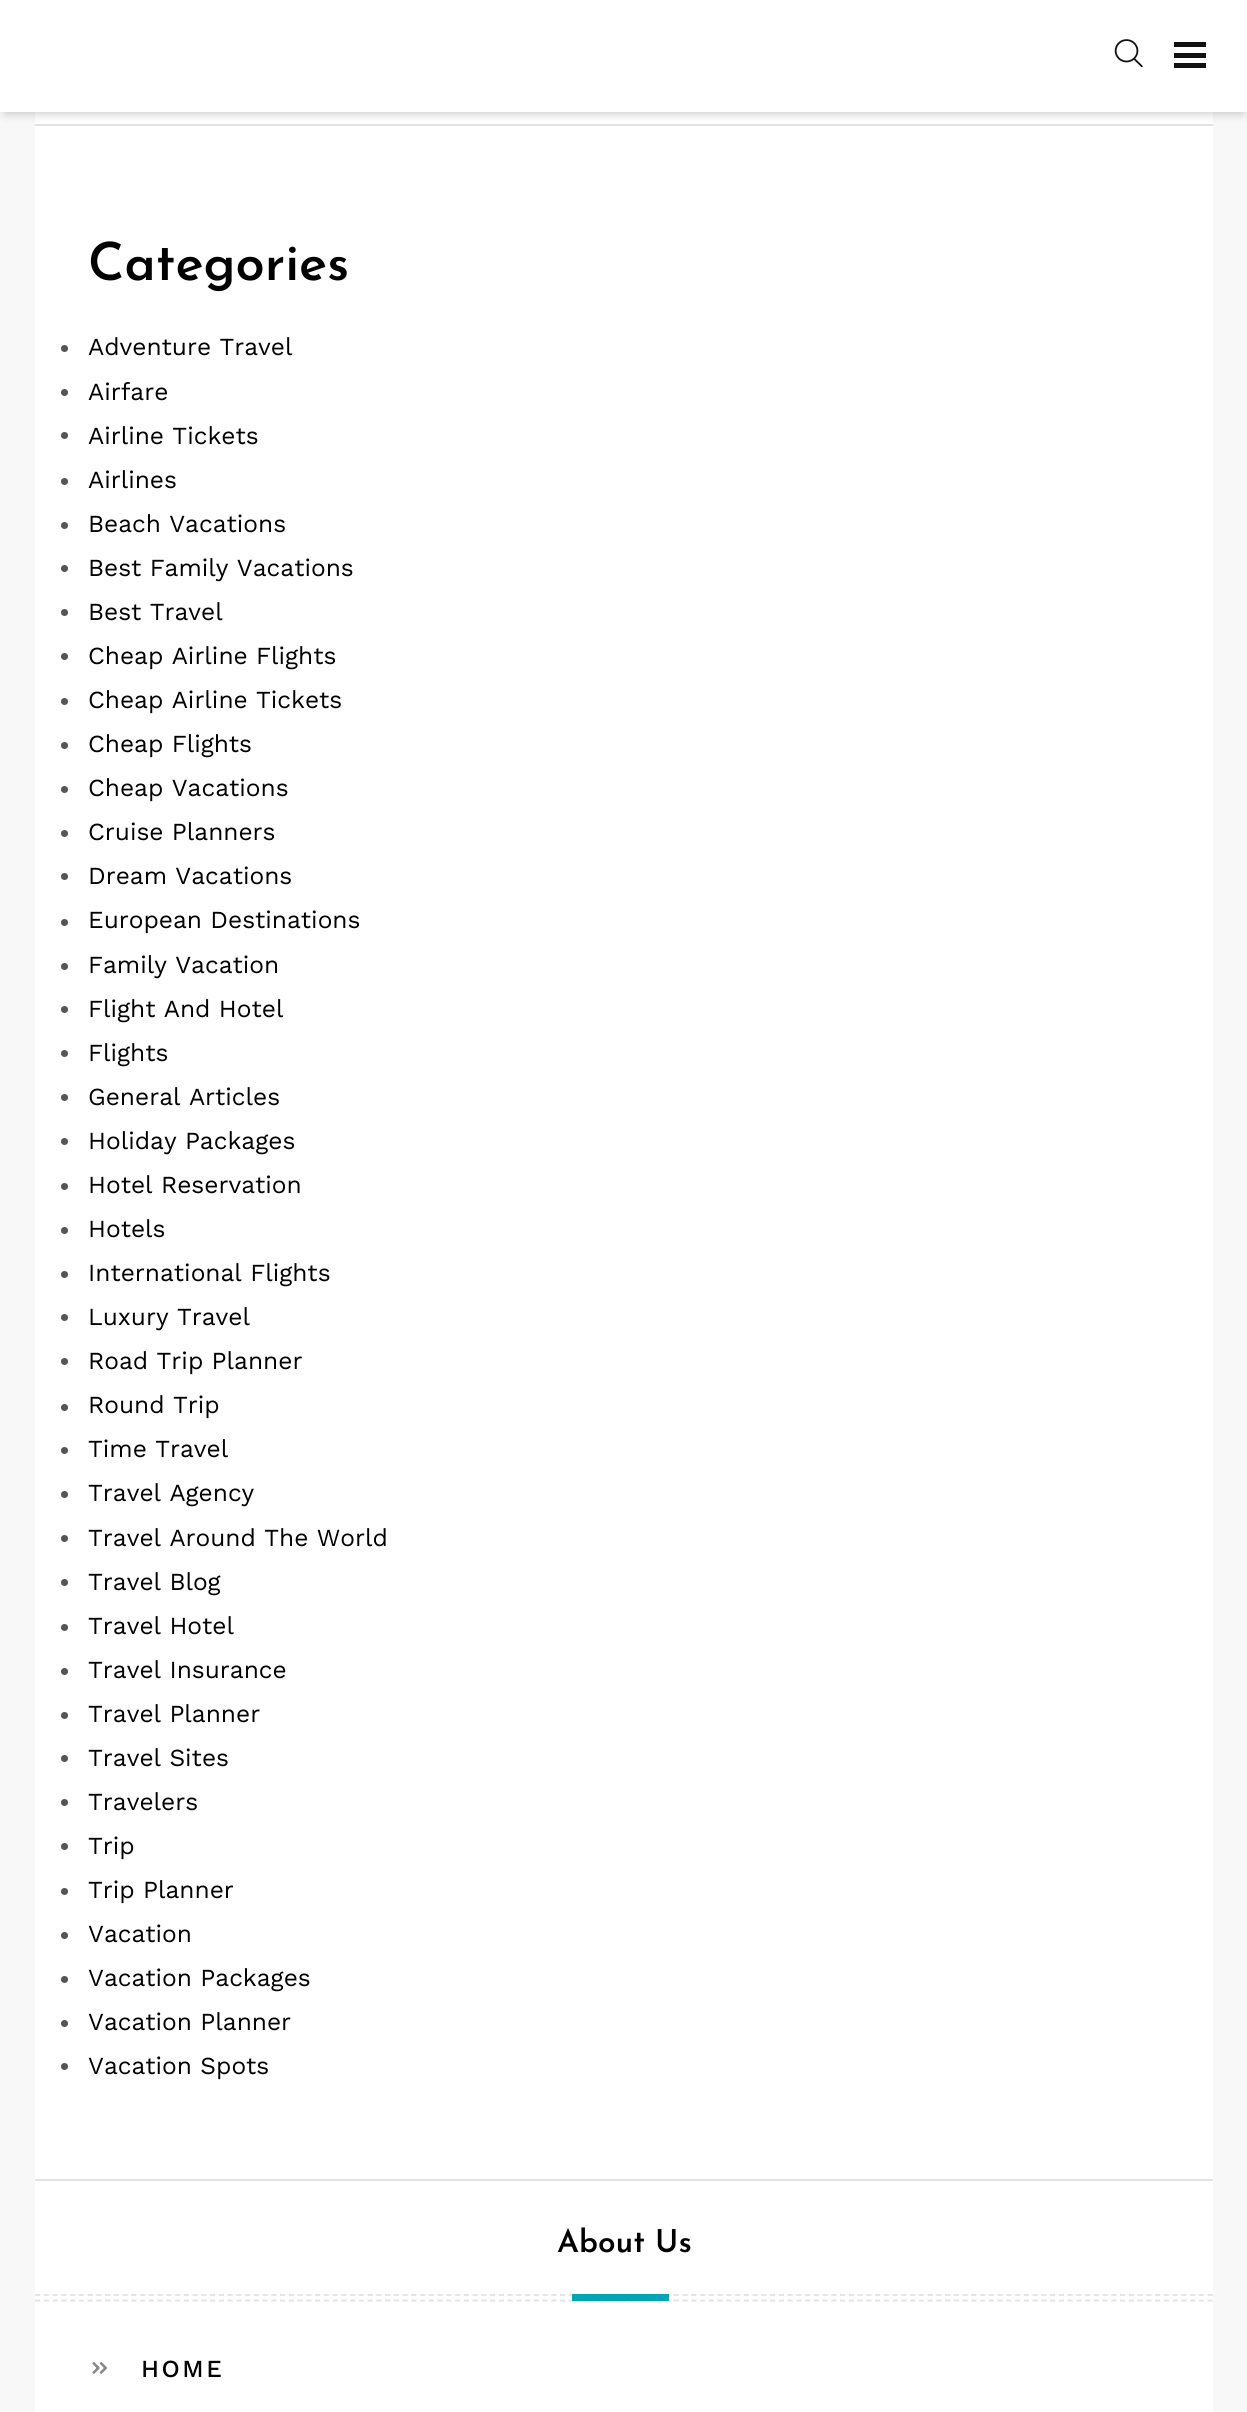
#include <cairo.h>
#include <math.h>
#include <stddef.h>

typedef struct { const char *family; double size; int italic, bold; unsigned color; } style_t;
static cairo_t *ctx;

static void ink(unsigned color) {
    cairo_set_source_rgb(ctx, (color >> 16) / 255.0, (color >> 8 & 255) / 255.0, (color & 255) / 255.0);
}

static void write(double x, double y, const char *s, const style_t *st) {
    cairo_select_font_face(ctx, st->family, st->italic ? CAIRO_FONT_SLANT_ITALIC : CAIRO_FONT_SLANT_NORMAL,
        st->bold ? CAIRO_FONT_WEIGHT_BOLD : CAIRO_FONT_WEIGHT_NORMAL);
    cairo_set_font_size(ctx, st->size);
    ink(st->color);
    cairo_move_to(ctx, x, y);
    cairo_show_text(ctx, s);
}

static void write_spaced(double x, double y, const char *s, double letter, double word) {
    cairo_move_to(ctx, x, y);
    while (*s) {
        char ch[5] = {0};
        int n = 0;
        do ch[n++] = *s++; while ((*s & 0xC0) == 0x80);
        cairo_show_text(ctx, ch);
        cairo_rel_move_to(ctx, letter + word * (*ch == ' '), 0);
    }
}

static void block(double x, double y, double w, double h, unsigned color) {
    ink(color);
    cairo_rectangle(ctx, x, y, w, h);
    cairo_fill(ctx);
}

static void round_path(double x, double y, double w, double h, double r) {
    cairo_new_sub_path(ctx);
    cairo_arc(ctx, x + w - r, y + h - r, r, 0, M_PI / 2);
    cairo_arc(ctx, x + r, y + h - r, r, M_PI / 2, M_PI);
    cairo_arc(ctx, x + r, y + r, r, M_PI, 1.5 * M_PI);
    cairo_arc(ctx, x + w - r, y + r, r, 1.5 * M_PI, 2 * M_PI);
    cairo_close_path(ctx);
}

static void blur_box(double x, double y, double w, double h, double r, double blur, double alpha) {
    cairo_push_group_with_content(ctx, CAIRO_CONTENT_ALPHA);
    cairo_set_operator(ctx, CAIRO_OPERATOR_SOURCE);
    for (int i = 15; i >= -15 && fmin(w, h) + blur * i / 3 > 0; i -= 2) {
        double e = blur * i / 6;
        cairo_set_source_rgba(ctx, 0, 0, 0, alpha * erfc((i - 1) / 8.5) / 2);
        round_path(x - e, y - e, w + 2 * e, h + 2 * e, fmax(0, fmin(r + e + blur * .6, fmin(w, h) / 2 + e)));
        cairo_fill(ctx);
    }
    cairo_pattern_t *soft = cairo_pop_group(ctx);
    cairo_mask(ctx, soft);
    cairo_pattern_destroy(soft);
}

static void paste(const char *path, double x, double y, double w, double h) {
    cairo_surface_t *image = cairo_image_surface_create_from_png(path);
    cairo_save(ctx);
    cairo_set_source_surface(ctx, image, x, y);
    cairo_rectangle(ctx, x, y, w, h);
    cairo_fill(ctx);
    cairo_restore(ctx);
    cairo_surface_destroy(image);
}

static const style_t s1 = {"Josefin Sans SemiBold", 52.5, 0, 0, 0x000000};
static const style_t s2 = {"Work Sans", 24.5, 0, 0, 0x000000};
static const style_t s3 = {"Josefin Sans SemiBold", 31.5, 0, 0, 0x000000};

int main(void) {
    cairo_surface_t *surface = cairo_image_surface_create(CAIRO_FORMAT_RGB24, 1247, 2412);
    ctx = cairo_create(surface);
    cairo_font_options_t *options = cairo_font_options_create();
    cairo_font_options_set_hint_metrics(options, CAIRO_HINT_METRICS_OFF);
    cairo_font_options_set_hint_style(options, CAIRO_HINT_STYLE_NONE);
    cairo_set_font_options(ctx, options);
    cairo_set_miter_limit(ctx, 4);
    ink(0xf8f8f8);
    cairo_paint(ctx);
    block(35, 112, 1178, 12, 0xffffff);
    block(35, 124, 1178, 2, 0xe2e2e2);
    block(35, 126, 1178, 2053, 0xffffff);
    ink(0x000000);
    blur_box(5, 12, 1238, 102, 0, 4.5, 0.2);
    block(0, 0, 1247, 112, 0xffffff);
    paste("pic1.png", 1114, 39, 29, 29);
    block(1174, 42, 32, 5, 0x111111);
    block(1174, 53, 32, 5, 0x111111);
    block(1174, 63, 32, 5, 0x111111);
    block(35, 2179, 1178, 2, 0xe2e2e2);
    write(88, 280, "Categories", &s1);
    ink(0x555555);
    cairo_new_path(ctx);
    cairo_arc(ctx, 64.5, 348.5, 3.5, 0, 2 * M_PI);
    cairo_fill(ctx);
    write(88, 355, "Adventure Travel", &s2);
    ink(0x555555);
    cairo_new_path(ctx);
    cairo_arc(ctx, 64.5, 392.5, 3.5, 0, 2 * M_PI);
    cairo_fill(ctx);
    write(88, 400, "Airfare", &s2);
    ink(0x555555);
    cairo_new_path(ctx);
    cairo_arc(ctx, 64.5, 435.5, 3.5, 0, 2 * M_PI);
    cairo_fill(ctx);
    write(88, 444, "Airline Tickets", &s2);
    ink(0x555555);
    cairo_new_path(ctx);
    cairo_arc(ctx, 64.5, 481.5, 3.5, 0, 2 * M_PI);
    cairo_fill(ctx);
    write(88, 488, "Airlines", &s2);
    ink(0x555555);
    cairo_new_path(ctx);
    cairo_arc(ctx, 64.5, 525.5, 3.5, 0, 2 * M_PI);
    cairo_fill(ctx);
    write(88, 532, "Beach Vacations", &s2);
    ink(0x555555);
    cairo_new_path(ctx);
    cairo_arc(ctx, 64.5, 568.5, 3.5, 0, 2 * M_PI);
    cairo_fill(ctx);
    write(88, 576, "Best Family Vacations", &s2);
    ink(0x555555);
    cairo_new_path(ctx);
    cairo_arc(ctx, 64.5, 612.5, 3.5, 0, 2 * M_PI);
    cairo_fill(ctx);
    write(88, 620, "Best Travel", &s2);
    ink(0x555555);
    cairo_new_path(ctx);
    cairo_arc(ctx, 64.5, 656.5, 3.5, 0, 2 * M_PI);
    cairo_fill(ctx);
    write(88, 664, "Cheap Airline Flights", &s2);
    ink(0x555555);
    cairo_new_path(ctx);
    cairo_arc(ctx, 64.5, 701.5, 3.5, 0, 2 * M_PI);
    cairo_fill(ctx);
    write(88, 708, "Cheap Airline Tickets", &s2);
    ink(0x555555);
    cairo_new_path(ctx);
    cairo_arc(ctx, 64.5, 745.5, 3.5, 0, 2 * M_PI);
    cairo_fill(ctx);
    write(88, 752, "Cheap Flights", &s2);
    ink(0x555555);
    cairo_new_path(ctx);
    cairo_arc(ctx, 64.5, 789.5, 3.5, 0, 2 * M_PI);
    cairo_fill(ctx);
    write(88, 796, "Cheap Vacations", &s2);
    ink(0x555555);
    cairo_new_path(ctx);
    cairo_arc(ctx, 64.5, 833.5, 3.5, 0, 2 * M_PI);
    cairo_fill(ctx);
    write(88, 840, "Cruise Planners", &s2);
    ink(0x555555);
    cairo_new_path(ctx);
    cairo_arc(ctx, 64.5, 876.5, 3.5, 0, 2 * M_PI);
    cairo_fill(ctx);
    write(88, 884, "Dream Vacations", &s2);
    ink(0x555555);
    cairo_new_path(ctx);
    cairo_arc(ctx, 64.5, 922.5, 3.5, 0, 2 * M_PI);
    cairo_fill(ctx);
    write(88, 928, "European Destinations", &s2);
    ink(0x555555);
    cairo_new_path(ctx);
    cairo_arc(ctx, 64.5, 966.5, 3.5, 0, 2 * M_PI);
    cairo_fill(ctx);
    write(88, 973, "Family Vacation", &s2);
    ink(0x555555);
    cairo_new_path(ctx);
    cairo_arc(ctx, 64.5, 1009.5, 3.5, 0, 2 * M_PI);
    cairo_fill(ctx);
    write(88, 1017, "Flight And Hotel", &s2);
    ink(0x555555);
    cairo_new_path(ctx);
    cairo_arc(ctx, 64.5, 1053.5, 3.5, 0, 2 * M_PI);
    cairo_fill(ctx);
    write(88, 1061, "Flights", &s2);
    ink(0x555555);
    cairo_new_path(ctx);
    cairo_arc(ctx, 64.5, 1097.5, 3.5, 0, 2 * M_PI);
    cairo_fill(ctx);
    write(88, 1105, "General Articles", &s2);
    ink(0x555555);
    cairo_new_path(ctx);
    cairo_arc(ctx, 64.5, 1141.5, 3.5, 0, 2 * M_PI);
    cairo_fill(ctx);
    write(88, 1149, "Holiday Packages", &s2);
    ink(0x555555);
    cairo_new_path(ctx);
    cairo_arc(ctx, 64.5, 1186.5, 3.5, 0, 2 * M_PI);
    cairo_fill(ctx);
    write(88, 1193, "Hotel Reservation", &s2);
    ink(0x555555);
    cairo_new_path(ctx);
    cairo_arc(ctx, 64.5, 1230.5, 3.5, 0, 2 * M_PI);
    cairo_fill(ctx);
    write(88, 1237, "Hotels", &s2);
    ink(0x555555);
    cairo_new_path(ctx);
    cairo_arc(ctx, 64.5, 1274.5, 3.5, 0, 2 * M_PI);
    cairo_fill(ctx);
    write(88, 1281, "International Flights", &s2);
    ink(0x555555);
    cairo_new_path(ctx);
    cairo_arc(ctx, 64.5, 1317.5, 3.5, 0, 2 * M_PI);
    cairo_fill(ctx);
    write(88, 1325, "Luxury Travel", &s2);
    ink(0x555555);
    cairo_new_path(ctx);
    cairo_arc(ctx, 64.5, 1361.5, 3.5, 0, 2 * M_PI);
    cairo_fill(ctx);
    write(88, 1369, "Road Trip Planner", &s2);
    ink(0x555555);
    cairo_new_path(ctx);
    cairo_arc(ctx, 64.5, 1407.5, 3.5, 0, 2 * M_PI);
    cairo_fill(ctx);
    write(88, 1413, "Round Trip", &s2);
    ink(0x555555);
    cairo_new_path(ctx);
    cairo_arc(ctx, 64.5, 1450.5, 3.5, 0, 2 * M_PI);
    cairo_fill(ctx);
    write(88, 1457, "Time Travel", &s2);
    ink(0x555555);
    cairo_new_path(ctx);
    cairo_arc(ctx, 64.5, 1494.5, 3.5, 0, 2 * M_PI);
    cairo_fill(ctx);
    write(88, 1501, "Travel Agency", &s2);
    ink(0x555555);
    cairo_new_path(ctx);
    cairo_arc(ctx, 64.5, 1538.5, 3.5, 0, 2 * M_PI);
    cairo_fill(ctx);
    write(88, 1546, "Travel Around The World", &s2);
    ink(0x555555);
    cairo_new_path(ctx);
    cairo_arc(ctx, 64.5, 1582.5, 3.5, 0, 2 * M_PI);
    cairo_fill(ctx);
    write(88, 1590, "Travel Blog", &s2);
    ink(0x555555);
    cairo_new_path(ctx);
    cairo_arc(ctx, 64.5, 1627.5, 3.5, 0, 2 * M_PI);
    cairo_fill(ctx);
    write(88, 1634, "Travel Hotel", &s2);
    ink(0x555555);
    cairo_new_path(ctx);
    cairo_arc(ctx, 64.5, 1671.5, 3.5, 0, 2 * M_PI);
    cairo_fill(ctx);
    write(88, 1678, "Travel Insurance", &s2);
    ink(0x555555);
    cairo_new_path(ctx);
    cairo_arc(ctx, 64.5, 1715.5, 3.5, 0, 2 * M_PI);
    cairo_fill(ctx);
    write(88, 1722, "Travel Planner", &s2);
    ink(0x555555);
    cairo_new_path(ctx);
    cairo_arc(ctx, 64.5, 1758.5, 3.5, 0, 2 * M_PI);
    cairo_fill(ctx);
    write(88, 1766, "Travel Sites", &s2);
    ink(0x555555);
    cairo_new_path(ctx);
    cairo_arc(ctx, 64.5, 1802.5, 3.5, 0, 2 * M_PI);
    cairo_fill(ctx);
    write(88, 1810, "Travelers", &s2);
    ink(0x555555);
    cairo_new_path(ctx);
    cairo_arc(ctx, 64.5, 1846.5, 3.5, 0, 2 * M_PI);
    cairo_fill(ctx);
    write(88, 1854, "Trip", &s2);
    ink(0x555555);
    cairo_new_path(ctx);
    cairo_arc(ctx, 64.5, 1891.5, 3.5, 0, 2 * M_PI);
    cairo_fill(ctx);
    write(88, 1898, "Trip Planner", &s2);
    ink(0x555555);
    cairo_new_path(ctx);
    cairo_arc(ctx, 64.5, 1935.5, 3.5, 0, 2 * M_PI);
    cairo_fill(ctx);
    write(88, 1942, "Vacation", &s2);
    ink(0x555555);
    cairo_new_path(ctx);
    cairo_arc(ctx, 64.5, 1979.5, 3.5, 0, 2 * M_PI);
    cairo_fill(ctx);
    write(88, 1986, "Vacation Packages", &s2);
    ink(0x555555);
    cairo_new_path(ctx);
    cairo_arc(ctx, 64.5, 2023.5, 3.5, 0, 2 * M_PI);
    cairo_fill(ctx);
    write(88, 2030, "Vacation Planner", &s2);
    ink(0x555555);
    cairo_new_path(ctx);
    cairo_arc(ctx, 64.5, 2066.5, 3.5, 0, 2 * M_PI);
    cairo_fill(ctx);
    write(88, 2074, "Vacation Spots", &s2);
    block(35, 2181, 1178, 231, 0xffffff);
    cairo_new_path(ctx);
    cairo_move_to(ctx, 35, 2300.5);
    cairo_line_to(ctx, 1213, 2300.5);
    ink(0xe2e2e2);
    cairo_set_line_width(ctx, 1.8);
    cairo_set_dash(ctx, (double[]){5.25, 3.5}, 2, 0);
    cairo_stroke(ctx);
    write(557, 2252, "About Us", &s3);
    cairo_new_path(ctx);
    cairo_move_to(ctx, 35, 2295);
    cairo_line_to(ctx, 1213, 2295);
    ink(0xe2e2e2);
    cairo_stroke(ctx);
    block(572, 2294, 97, 7, 0x00a6b6);
    paste("pic2.png", 92, 2362, 15, 12);
    cairo_select_font_face(ctx, "Work Sans Medium", CAIRO_FONT_SLANT_NORMAL, CAIRO_FONT_WEIGHT_NORMAL);
    cairo_set_font_size(ctx, 24.5);
    ink(0x000000);
    write_spaced(141, 2377, "HOME", 2.5, 0);
    cairo_surface_write_to_png(surface, "screenshot.png");
    cairo_font_options_destroy(options);
    cairo_destroy(ctx);
    cairo_surface_destroy(surface);
    return 0;
}
